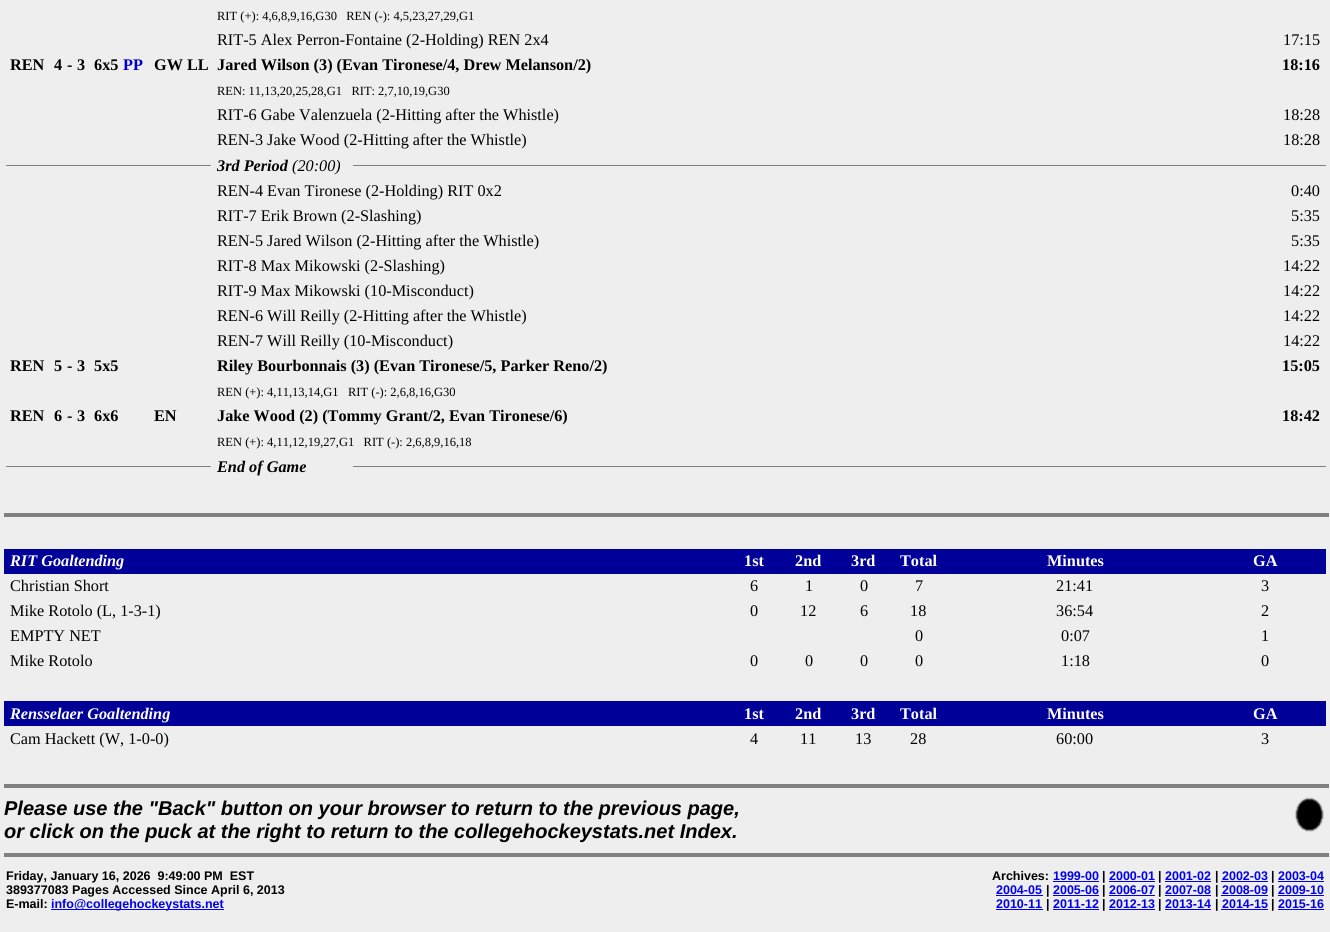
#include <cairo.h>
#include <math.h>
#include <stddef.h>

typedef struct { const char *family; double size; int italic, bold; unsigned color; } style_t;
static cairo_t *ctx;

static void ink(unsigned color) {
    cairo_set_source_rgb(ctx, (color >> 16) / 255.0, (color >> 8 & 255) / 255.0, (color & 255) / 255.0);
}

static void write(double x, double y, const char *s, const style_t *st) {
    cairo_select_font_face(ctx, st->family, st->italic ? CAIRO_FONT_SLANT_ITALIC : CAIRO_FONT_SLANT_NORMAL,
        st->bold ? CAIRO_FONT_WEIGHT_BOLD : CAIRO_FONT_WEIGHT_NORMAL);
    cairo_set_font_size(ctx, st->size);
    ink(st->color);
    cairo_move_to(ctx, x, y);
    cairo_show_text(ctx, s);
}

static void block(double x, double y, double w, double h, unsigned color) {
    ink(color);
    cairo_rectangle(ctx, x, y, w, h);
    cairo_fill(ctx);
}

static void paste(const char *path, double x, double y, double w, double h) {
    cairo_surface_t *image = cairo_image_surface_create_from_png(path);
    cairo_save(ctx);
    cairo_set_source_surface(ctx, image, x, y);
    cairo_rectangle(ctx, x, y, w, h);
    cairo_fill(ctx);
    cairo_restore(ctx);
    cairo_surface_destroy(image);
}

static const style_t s1 = {"Liberation Serif", 12.5, 0, 0, 0x000000};
static const style_t s2 = {"Liberation Serif", 16.25, 0, 0, 0x000000};
static const style_t s3 = {"Liberation Serif", 16.25, 0, 1, 0x000000};
static const style_t s4 = {"Liberation Serif", 16.25, 0, 1, 0x0000cc};
static const style_t s5 = {"Liberation Serif", 16.25, 1, 1, 0x000000};
static const style_t s6 = {"Liberation Serif", 16.25, 1, 0, 0x000000};
static const style_t s7 = {"Liberation Serif", 16.25, 1, 1, 0xfefefe};
static const style_t s8 = {"Liberation Serif", 16.25, 0, 1, 0xfefefe};
static const style_t s9 = {"Liberation Sans", 20, 1, 1, 0x000000};
static const style_t s10 = {"Liberation Sans", 12.5, 0, 1, 0x000000};
static const style_t s11 = {"Liberation Sans", 12.5, 0, 1, 0x0000ee};

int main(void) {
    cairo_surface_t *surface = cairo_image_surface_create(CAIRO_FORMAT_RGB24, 1330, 932);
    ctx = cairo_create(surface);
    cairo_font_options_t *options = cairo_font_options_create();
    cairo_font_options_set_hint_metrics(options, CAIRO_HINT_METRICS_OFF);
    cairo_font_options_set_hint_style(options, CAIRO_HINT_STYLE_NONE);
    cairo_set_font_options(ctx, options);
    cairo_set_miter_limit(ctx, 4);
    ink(0xeeeeee);
    cairo_paint(ctx);
    write(217, 20, "RIT (+): 4,6,8,9,16,G30   REN (-): 4,5,23,27,29,G1", &s1);
    write(217, 45, "RIT-5 Alex Perron-Fontaine (2-Holding) REN 2x4", &s2);
    write(1283, 45, "17:15", &s2);
    write(10, 70, "REN", &s3);
    write(54, 70, "4", &s3);
    write(67, 70, "-", &s3);
    write(77, 70, "3", &s3);
    write(94, 70, "6x5", &s3);
    write(123, 70, "PP", &s4);
    write(154, 70, "GW LL", &s3);
    write(217, 70, "Jared Wilson (3) (Evan Tironese/4, Drew Melanson/2)", &s3);
    write(1282, 70, "18:16", &s3);
    write(217, 95, "REN: 11,13,20,25,28,G1   RIT: 2,7,10,19,G30", &s1);
    write(217, 120, "RIT-6 Gabe Valenzuela (2-Hitting after the Whistle)", &s2);
    write(1283, 120, "18:28", &s2);
    write(217, 145, "REN-3 Jake Wood (2-Hitting after the Whistle)", &s2);
    write(1283, 145, "18:28", &s2);
    block(6, 165, 205, 1, 0x808080);
    write(217, 171, "3rd Period", &s5);
    write(292, 171, "(20:00)", &s6);
    block(353, 165, 973, 1, 0x808080);
    write(217, 196, "REN-4 Evan Tironese (2-Holding) RIT 0x2", &s2);
    write(1291, 196, "0:40", &s2);
    write(217, 221, "RIT-7 Erik Brown (2-Slashing)", &s2);
    write(1291, 221, "5:35", &s2);
    write(217, 246, "REN-5 Jared Wilson (2-Hitting after the Whistle)", &s2);
    write(1291, 246, "5:35", &s2);
    write(217, 271, "RIT-8 Max Mikowski (2-Slashing)", &s2);
    write(1283, 271, "14:22", &s2);
    write(217, 296, "RIT-9 Max Mikowski (10-Misconduct)", &s2);
    write(1283, 296, "14:22", &s2);
    write(217, 321, "REN-6 Will Reilly (2-Hitting after the Whistle)", &s2);
    write(1283, 321, "14:22", &s2);
    write(217, 346, "REN-7 Will Reilly (10-Misconduct)", &s2);
    write(1283, 346, "14:22", &s2);
    write(10, 371, "REN", &s3);
    write(54, 371, "5", &s3);
    write(67, 371, "-", &s3);
    write(77, 371, "3", &s3);
    write(94, 371, "5x5", &s3);
    write(217, 371, "Riley Bourbonnais (3) (Evan Tironese/5, Parker Reno/2)", &s3);
    write(1282, 371, "15:05", &s3);
    write(217, 396, "REN (+): 4,11,13,14,G1   RIT (-): 2,6,8,16,G30", &s1);
    write(10, 421, "REN", &s3);
    write(54, 421, "6", &s3);
    write(67, 421, "-", &s3);
    write(77, 421, "3", &s3);
    write(94, 421, "6x6", &s3);
    write(154, 421, "EN", &s3);
    write(217, 421, "Jake Wood (2) (Tommy Grant/2, Evan Tironese/6)", &s3);
    write(1282, 421, "18:42", &s3);
    write(217, 446, "REN (+): 4,11,12,19,27,G1   RIT (-): 2,6,8,9,16,18", &s1);
    block(6, 466, 205, 1, 0x808080);
    write(217, 472, "End of Game", &s5);
    block(353, 466, 973, 1, 0x808080);
    block(4, 513, 1325, 4, 0x808080);
    block(4, 549, 1322, 25, 0x000099);
    write(10, 566, "RIT Goaltending", &s7);
    write(744, 566, "1st", &s8);
    write(795, 566, "2nd", &s8);
    write(851, 566, "3rd", &s8);
    write(900, 566, "Total", &s8);
    write(1047, 566, "Minutes", &s8);
    write(1253, 566, "GA", &s8);
    write(10, 591, "Christian Short", &s2);
    write(750, 591, "6", &s2);
    write(805, 591, "1", &s2);
    write(860, 591, "0", &s2);
    write(915, 591, "7", &s2);
    write(1056, 591, "21:41", &s2);
    write(1261, 591, "3", &s2);
    write(10, 616, "Mike Rotolo (L, 1-3-1)", &s2);
    write(750, 616, "0", &s2);
    write(800, 616, "12", &s2);
    write(860, 616, "6", &s2);
    write(910, 616, "18", &s2);
    write(1056, 616, "36:54", &s2);
    write(1261, 616, "2", &s2);
    write(10, 641, "EMPTY NET", &s2);
    write(915, 641, "0", &s2);
    write(1061, 641, "0:07", &s2);
    write(1261, 641, "1", &s2);
    write(10, 666, "Mike Rotolo", &s2);
    write(750, 666, "0", &s2);
    write(805, 666, "0", &s2);
    write(860, 666, "0", &s2);
    write(915, 666, "0", &s2);
    write(1061, 666, "1:18", &s2);
    write(1261, 666, "0", &s2);
    block(4, 701, 1322, 25, 0x000099);
    write(10, 719, "Rensselaer Goaltending", &s7);
    write(744, 719, "1st", &s8);
    write(795, 719, "2nd", &s8);
    write(851, 719, "3rd", &s8);
    write(900, 719, "Total", &s8);
    write(1047, 719, "Minutes", &s8);
    write(1253, 719, "GA", &s8);
    write(10, 744, "Cam Hackett (W, 1-0-0)", &s2);
    write(750, 744, "4", &s2);
    write(800, 744, "11", &s2);
    write(855, 744, "13", &s2);
    write(910, 744, "28", &s2);
    write(1056, 744, "60:00", &s2);
    write(1261, 744, "3", &s2);
    block(4, 784, 1325, 4, 0x808080);
    write(4, 815, "Please use the \"Back\" button on your browser to return to the previous page,", &s9);
    paste("pic1.png", 1295, 797, 29, 35);
    write(4, 838, "or click on the puck at the right to return to the collegehockeystats.net Index.", &s9);
    block(4, 853, 1325, 4, 0x808080);
    write(6, 880, "Friday, January 16, 2026  9:49:00 PM  EST", &s10);
    write(6, 894, "389377083 Pages Accessed Since April 6, 2013", &s10);
    write(6, 908, "E-mail:", &s10);
    block(51, 909, 173, 1, 0x0000ee);
    write(51, 908, "info@collegehockeystats.net", &s11);
    write(992, 880, "Archives:", &s10);
    write(1053, 880, "1999-00", &s11);
    block(1053, 881, 46, 1, 0x0000ee);
    write(1102, 880, "|", &s10);
    write(1109, 880, "2000-01", &s11);
    block(1109, 881, 46, 1, 0x0000ee);
    write(1158, 880, "|", &s10);
    write(1165, 880, "2001-02", &s11);
    block(1165, 881, 46, 1, 0x0000ee);
    write(1215, 880, "|", &s10);
    write(1222, 880, "2002-03", &s11);
    block(1221, 881, 47, 1, 0x0000ee);
    write(1271, 880, "|", &s10);
    write(1278, 880, "2003-04", &s11);
    block(1278, 881, 46, 1, 0x0000ee);
    write(996, 894, "2004-05", &s11);
    block(996, 895, 47, 1, 0x0000ee);
    write(1046, 894, "|", &s10);
    write(1053, 894, "2005-06", &s11);
    block(1053, 895, 46, 1, 0x0000ee);
    write(1102, 894, "|", &s10);
    write(1109, 894, "2006-07", &s11);
    block(1109, 895, 46, 1, 0x0000ee);
    write(1158, 894, "|", &s10);
    write(1165, 894, "2007-08", &s11);
    block(1165, 895, 46, 1, 0x0000ee);
    write(1215, 894, "|", &s10);
    write(1222, 894, "2008-09", &s11);
    block(1221, 895, 47, 1, 0x0000ee);
    write(1271, 894, "|", &s10);
    write(1278, 894, "2009-10", &s11);
    block(1278, 895, 46, 1, 0x0000ee);
    write(996, 908, "2010-11", &s11);
    block(996, 909, 47, 1, 0x0000ee);
    write(1046, 908, "|", &s10);
    write(1053, 908, "2011-12", &s11);
    block(1053, 909, 46, 1, 0x0000ee);
    write(1102, 908, "|", &s10);
    write(1109, 908, "2012-13", &s11);
    block(1109, 909, 46, 1, 0x0000ee);
    write(1158, 908, "|", &s10);
    write(1165, 908, "2013-14", &s11);
    block(1165, 909, 46, 1, 0x0000ee);
    write(1215, 908, "|", &s10);
    write(1222, 908, "2014-15", &s11);
    block(1221, 909, 47, 1, 0x0000ee);
    write(1271, 908, "|", &s10);
    write(1278, 908, "2015-16", &s11);
    block(1278, 909, 46, 1, 0x0000ee);
    cairo_surface_write_to_png(surface, "screenshot.png");
    cairo_font_options_destroy(options);
    cairo_destroy(ctx);
    cairo_surface_destroy(surface);
    return 0;
}
